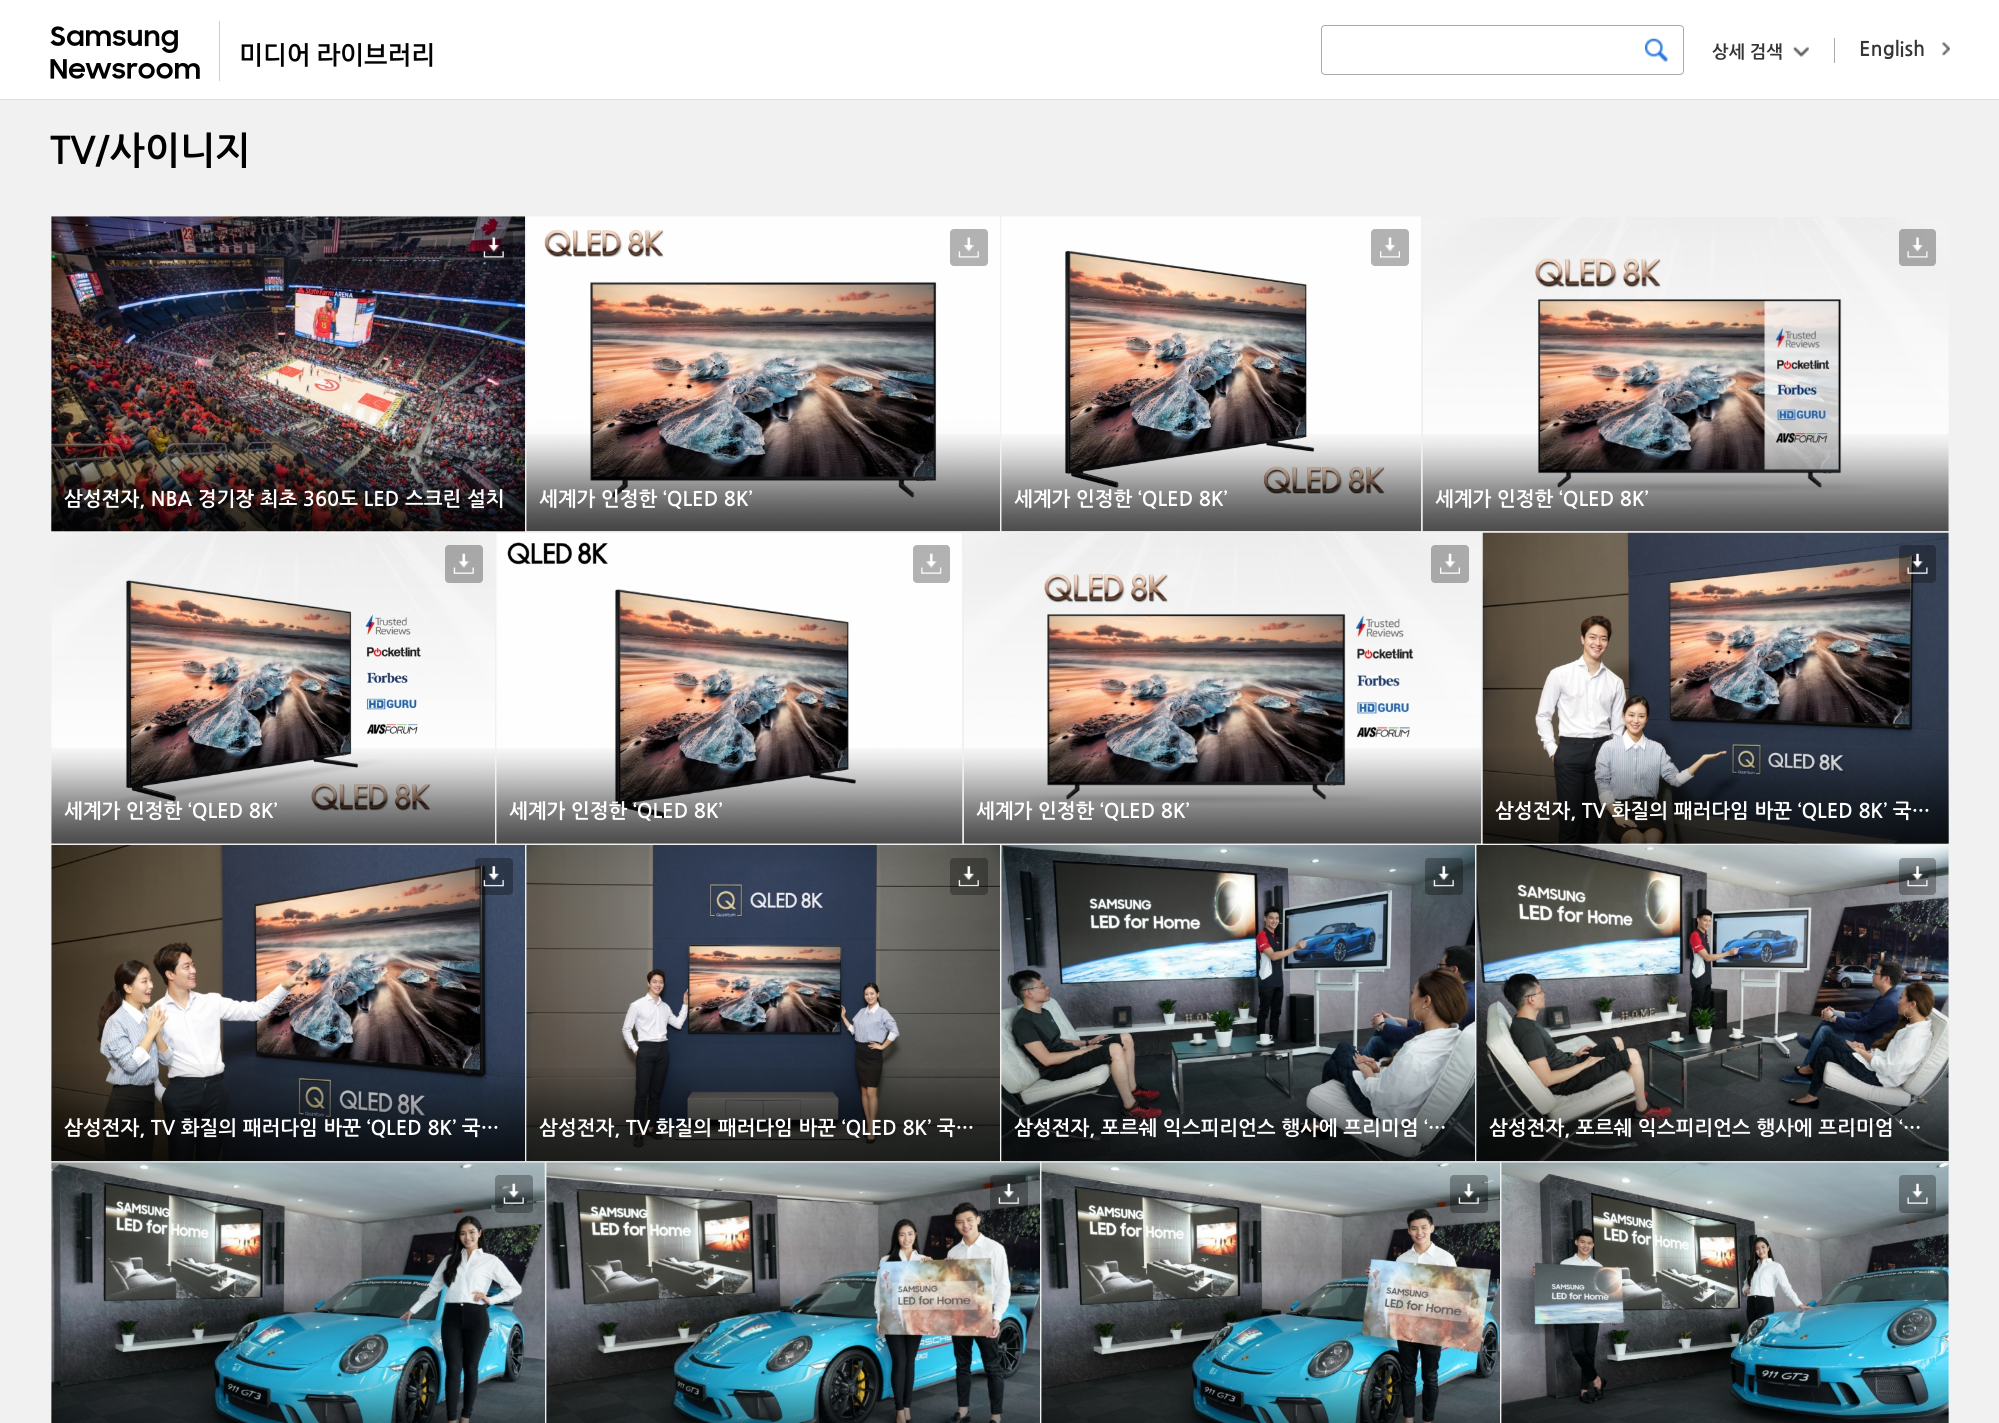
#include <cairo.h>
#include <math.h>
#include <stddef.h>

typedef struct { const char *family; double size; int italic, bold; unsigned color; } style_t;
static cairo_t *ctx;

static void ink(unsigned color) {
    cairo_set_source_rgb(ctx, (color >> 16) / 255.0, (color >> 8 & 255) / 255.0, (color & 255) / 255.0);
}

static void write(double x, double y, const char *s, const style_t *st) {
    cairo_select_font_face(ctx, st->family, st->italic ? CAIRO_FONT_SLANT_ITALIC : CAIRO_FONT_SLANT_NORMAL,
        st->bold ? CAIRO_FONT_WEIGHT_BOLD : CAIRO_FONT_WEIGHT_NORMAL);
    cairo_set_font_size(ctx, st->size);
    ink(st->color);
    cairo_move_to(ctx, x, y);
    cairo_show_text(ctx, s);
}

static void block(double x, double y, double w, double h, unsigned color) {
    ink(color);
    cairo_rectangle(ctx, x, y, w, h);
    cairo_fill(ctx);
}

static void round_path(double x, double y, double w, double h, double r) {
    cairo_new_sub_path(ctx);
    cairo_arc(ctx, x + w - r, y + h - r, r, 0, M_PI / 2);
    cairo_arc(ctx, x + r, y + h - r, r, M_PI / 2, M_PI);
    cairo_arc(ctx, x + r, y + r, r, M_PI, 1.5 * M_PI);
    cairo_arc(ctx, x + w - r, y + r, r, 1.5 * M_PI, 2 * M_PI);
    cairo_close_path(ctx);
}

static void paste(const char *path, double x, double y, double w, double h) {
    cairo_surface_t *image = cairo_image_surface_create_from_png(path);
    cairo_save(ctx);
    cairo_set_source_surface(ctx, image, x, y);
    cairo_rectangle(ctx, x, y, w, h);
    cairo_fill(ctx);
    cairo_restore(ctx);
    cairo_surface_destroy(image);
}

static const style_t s1 = {"NanumGothic", 17.5, 0, 1, 0x363636};
static const style_t s2 = {"NanumGothic", 20, 0, 1, 0x363636};
static const style_t s3 = {"NanumGothic", 37.5, 0, 1, 0x000000};
static const style_t s4 = {"NanumGothic", 20, 0, 1, 0xffffff};

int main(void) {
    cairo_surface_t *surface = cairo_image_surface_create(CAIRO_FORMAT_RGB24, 1999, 1423);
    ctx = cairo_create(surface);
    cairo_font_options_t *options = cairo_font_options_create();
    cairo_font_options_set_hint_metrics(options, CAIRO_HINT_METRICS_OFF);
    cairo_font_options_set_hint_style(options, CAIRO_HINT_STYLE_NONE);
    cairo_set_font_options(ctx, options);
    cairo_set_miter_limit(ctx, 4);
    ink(0xf1f1f1);
    cairo_paint(ctx);
    block(0, 0, 1999, 99, 0xffffff);
    block(0, 99, 1999, 1, 0xdddddd);
    block(219, 21, 1, 60, 0xcccccc);
    paste("pic1.png", 50, 26, 150, 53);
    paste("pic2.png", 241, 43, 192, 24);
    round_path(1321.5, 25.5, 362, 49, 3.5);
    ink(0xaaaaaa);
    cairo_set_line_width(ctx, 1);
    cairo_stroke(ctx);
    paste("pic3.png", 1645, 38, 23, 24);
    write(1712, 58, "상세 검색", &s1);
    paste("pic4.png", 1793, 46, 16, 11);
    block(1834, 38, 1, 25, 0xaaaaaa);
    write(1859, 56, "English", &s2);
    paste("pic5.png", 1942, 41, 8, 15);
    write(50, 164, "TV/사이니지", &s3);
    paste("pic7.png", 51, 216, 474, 316);
    cairo_set_source_rgba(ctx, 0, 0, 0, 0.3);
    round_path(475, 229, 38, 37, 4);
    cairo_fill(ctx);
    paste("pic6.png", 483, 237, 21, 21);
    paste("pic8.png", 51, 434, 474, 98);
    write(64, 506, "삼성전자, NBA 경기장 최초 360도 LED 스크린 설치", &s4);
    paste("pic10.png", 526, 216, 474, 315);
    ink(0xb2b2b2);
    round_path(950, 229, 38, 37, 4);
    cairo_fill(ctx);
    paste("pic9.png", 958, 237, 21, 21);
    paste("pic11.png", 526, 434, 474, 98);
    write(539, 506, "세계가 인정한 ‘QLED 8K’", &s4);
    paste("pic13.png", 1001, 216, 420, 315);
    ink(0xb2b2b2);
    round_path(1371, 229, 38, 37, 4);
    cairo_fill(ctx);
    paste("pic12.png", 1380, 237, 20, 21);
    paste("pic14.png", 1001, 434, 421, 98);
    write(1014, 506, "세계가 인정한 ‘QLED 8K’", &s4);
    paste("pic16.png", 1423, 217, 526, 314);
    cairo_set_source_rgba(ctx, 0, 0, 0, 0.3);
    round_path(1899, 229, 37, 37, 4);
    cairo_fill(ctx);
    paste("pic15.png", 1907, 237, 21, 21);
    paste("pic17.png", 1422, 434, 527, 98);
    write(1435, 506, "세계가 인정한 ‘QLED 8K’", &s4);
    paste("pic19.png", 51, 533, 444, 311);
    cairo_set_source_rgba(ctx, 0, 0, 0, 0.3);
    round_path(445, 545, 38, 38, 4);
    cairo_fill(ctx);
    paste("pic18.png", 453, 553, 21, 21);
    paste("pic20.png", 51, 748, 444, 96);
    write(64, 818, "세계가 인정한 ‘QLED 8K’", &s4);
    paste("pic22.png", 496, 533, 466, 311);
    ink(0xb2b2b2);
    round_path(913, 545, 37, 38, 4);
    cairo_fill(ctx);
    paste("pic21.png", 921, 553, 21, 21);
    paste("pic23.png", 496, 748, 467, 96);
    write(509, 818, "세계가 인정한 ‘QLED 8K’", &s4);
    paste("pic25.png", 964, 533, 517, 311);
    cairo_set_source_rgba(ctx, 0, 0, 0, 0.3);
    round_path(1431, 545, 38, 38, 4);
    cairo_fill(ctx);
    paste("pic24.png", 1440, 553, 20, 21);
    paste("pic26.png", 963, 748, 519, 96);
    write(976, 818, "세계가 인정한 ‘QLED 8K’", &s4);
    paste("pic28.png", 1482, 532, 467, 312);
    cairo_set_source_rgba(ctx, 0, 0, 0, 0.3);
    round_path(1899, 545, 37, 38, 4);
    cairo_fill(ctx);
    paste("pic27.png", 1907, 553, 21, 21);
    paste("pic29.png", 1482, 748, 467, 96);
    write(1495, 818, "삼성전자, TV 화질의 패러다임 바꾼 ‘QLED 8K’ 국…", &s4);
    paste("pic31.png", 51, 845, 474, 317);
    cairo_set_source_rgba(ctx, 0, 0, 0, 0.3);
    round_path(475, 858, 38, 37, 4);
    cairo_fill(ctx);
    paste("pic30.png", 483, 866, 21, 21);
    paste("pic32.png", 51, 1064, 474, 98);
    write(64, 1135, "삼성전자, TV 화질의 패러다임 바꾼 ‘QLED 8K’ 국…", &s4);
    paste("pic34.png", 526, 845, 474, 317);
    cairo_set_source_rgba(ctx, 0, 0, 0, 0.3);
    round_path(950, 858, 38, 37, 4);
    cairo_fill(ctx);
    paste("pic33.png", 958, 866, 21, 21);
    paste("pic35.png", 526, 1068, 474, 94);
    write(539, 1135, "삼성전자, TV 화질의 패러다임 바꾼 ‘QLED 8K’ 국…", &s4);
    paste("pic37.png", 1001, 845, 474, 317);
    cairo_set_source_rgba(ctx, 0, 0, 0, 0.3);
    round_path(1425, 858, 38, 37, 4);
    cairo_fill(ctx);
    paste("pic36.png", 1433, 866, 21, 21);
    paste("pic38.png", 1001, 1064, 474, 98);
    write(1014, 1135, "삼성전자, 포르쉐 익스피리언스 행사에 프리미엄 ‘…", &s4);
    paste("pic40.png", 1476, 845, 473, 317);
    cairo_set_source_rgba(ctx, 0, 0, 0, 0.3);
    round_path(1899, 858, 37, 37, 4);
    cairo_fill(ctx);
    paste("pic39.png", 1907, 866, 21, 21);
    paste("pic41.png", 1476, 1064, 473, 98);
    write(1489, 1135, "삼성전자, 포르쉐 익스피리언스 행사에 프리미엄 ‘…", &s4);
    paste("pic42.png", 51, 1162, 494, 261);
    paste("pic43.png", 51, 1369, 494, 54);
    cairo_set_source_rgba(ctx, 0, 0, 0, 0.3);
    round_path(495, 1175, 38, 38, 4);
    cairo_fill(ctx);
    paste("pic44.png", 503, 1183, 21, 21);
    paste("pic45.png", 546, 1162, 494, 261);
    paste("pic46.png", 546, 1369, 494, 54);
    round_path(990, 1175, 38, 38, 4);
    cairo_fill(ctx);
    paste("pic47.png", 998, 1183, 21, 21);
    paste("pic48.png", 1041, 1162, 459, 261);
    paste("pic49.png", 1041, 1369, 459, 54);
    round_path(1450, 1175, 38, 38, 4);
    cairo_fill(ctx);
    paste("pic50.png", 1458, 1183, 21, 21);
    paste("pic51.png", 1501, 1162, 448, 261);
    paste("pic52.png", 1501, 1369, 448, 54);
    round_path(1899, 1175, 37, 38, 4);
    cairo_fill(ctx);
    paste("pic53.png", 1907, 1183, 21, 21);
    cairo_surface_write_to_png(surface, "screenshot.png");
    cairo_font_options_destroy(options);
    cairo_destroy(ctx);
    cairo_surface_destroy(surface);
    return 0;
}
